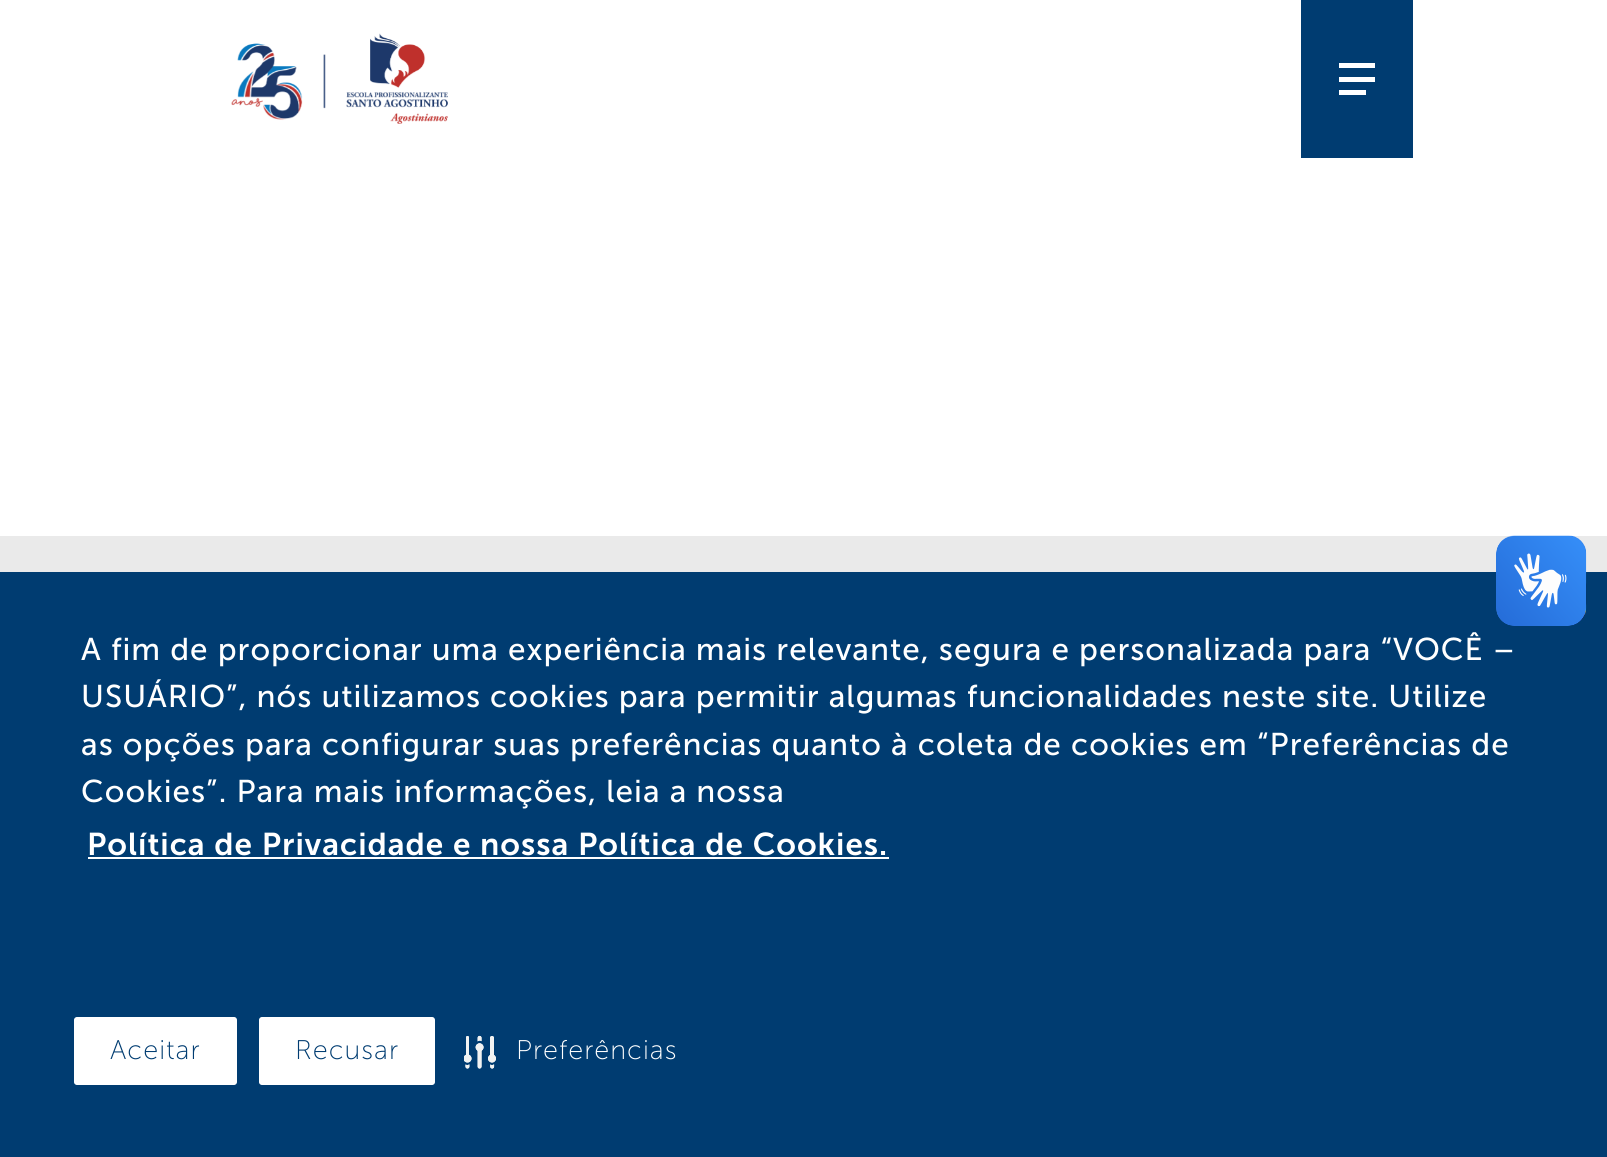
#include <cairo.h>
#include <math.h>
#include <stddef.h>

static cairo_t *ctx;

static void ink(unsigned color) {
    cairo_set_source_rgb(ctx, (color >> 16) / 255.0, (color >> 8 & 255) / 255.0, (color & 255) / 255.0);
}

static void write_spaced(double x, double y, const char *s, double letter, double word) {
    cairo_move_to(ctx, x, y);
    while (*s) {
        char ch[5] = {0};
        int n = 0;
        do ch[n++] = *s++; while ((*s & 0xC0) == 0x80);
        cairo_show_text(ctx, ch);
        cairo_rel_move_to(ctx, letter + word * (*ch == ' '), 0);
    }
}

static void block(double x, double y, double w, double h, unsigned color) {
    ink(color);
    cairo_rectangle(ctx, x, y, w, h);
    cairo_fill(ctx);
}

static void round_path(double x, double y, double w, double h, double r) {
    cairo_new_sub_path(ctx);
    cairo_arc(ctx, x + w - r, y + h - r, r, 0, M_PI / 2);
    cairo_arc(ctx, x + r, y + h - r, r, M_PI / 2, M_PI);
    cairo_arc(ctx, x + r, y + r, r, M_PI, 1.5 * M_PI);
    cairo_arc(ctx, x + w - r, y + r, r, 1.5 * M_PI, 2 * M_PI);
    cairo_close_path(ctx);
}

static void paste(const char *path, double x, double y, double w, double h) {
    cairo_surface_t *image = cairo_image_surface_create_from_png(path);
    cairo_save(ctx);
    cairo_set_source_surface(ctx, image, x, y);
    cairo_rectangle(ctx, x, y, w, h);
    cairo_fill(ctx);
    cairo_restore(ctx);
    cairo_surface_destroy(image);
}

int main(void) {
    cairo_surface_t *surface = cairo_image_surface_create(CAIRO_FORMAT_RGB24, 1607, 1157);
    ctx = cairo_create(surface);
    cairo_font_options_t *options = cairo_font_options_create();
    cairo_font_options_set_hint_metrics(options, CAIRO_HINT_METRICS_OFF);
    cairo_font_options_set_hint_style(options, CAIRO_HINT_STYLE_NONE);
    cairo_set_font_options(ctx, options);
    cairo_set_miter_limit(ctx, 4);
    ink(0xffffff);
    cairo_paint(ctx);
    paste("pic1.png", 231, 33, 217, 91);
    block(1301, 0, 112, 158, 0x003c71);
    block(1339, 77, 36, 5, 0xffffff);
    block(1339, 63, 36, 5, 0xffffff);
    block(1339, 90, 27, 5, 0xffffff);
    block(0, 536, 1607, 36, 0xeaeaea);
    block(0, 572, 1607, 585, 0x003c71);
    paste("pic2.png", 1496, 535, 91, 91);
    paste("pic3.png", 1496, 536, 90, 90);
    cairo_select_font_face(ctx, "Museo Sans", CAIRO_FONT_SLANT_NORMAL, CAIRO_FONT_WEIGHT_NORMAL);
    cairo_set_font_size(ctx, 31.5);
    ink(0xffffff);
    write_spaced(81, 660, "A fim de proporcionar uma experiência mais relevante, segura e personalizada para “VOCÊ –", 1, 0);
    write_spaced(81, 707, "USUÁRIO”, nós utilizamos cookies para permitir algumas funcionalidades neste site. Utilize", 1, 0);
    write_spaced(81, 755, "as opções para configurar suas preferências quanto à coleta de cookies em “Preferências de", 1, 0);
    write_spaced(81, 802, "Cookies”. Para mais informações, leia a nossa", 1, 0);
    cairo_select_font_face(ctx, "Museo Sans SemiBold", CAIRO_FONT_SLANT_NORMAL, CAIRO_FONT_WEIGHT_NORMAL);
    write_spaced(87, 855, "Política de Privacidade e nossa Política de Cookies.", 1, 0);
    block(88, 857, 801, 2, 0xffffff);
    round_path(73, 1016, 165, 70, 4);
    cairo_fill_preserve(ctx);
    ink(0x003c71);
    cairo_stroke(ctx);
    cairo_select_font_face(ctx, "Museo Sans ExtraLight", CAIRO_FONT_SLANT_NORMAL, CAIRO_FONT_WEIGHT_NORMAL);
    cairo_set_font_size(ctx, 27);
    write_spaced(110, 1059, "Aceitar", 1, 0);
    ink(0xffffff);
    round_path(258, 1016, 178, 70, 4);
    cairo_fill_preserve(ctx);
    ink(0x003c71);
    cairo_stroke(ctx);
    write_spaced(295, 1059, "Recusar", 1, 0);
    paste("pic4.png", 464, 1035, 32, 34);
    ink(0xffffff);
    write_spaced(516, 1059, "Preferências", 1, 0);
    cairo_surface_write_to_png(surface, "screenshot.png");
    cairo_font_options_destroy(options);
    cairo_destroy(ctx);
    cairo_surface_destroy(surface);
    return 0;
}
